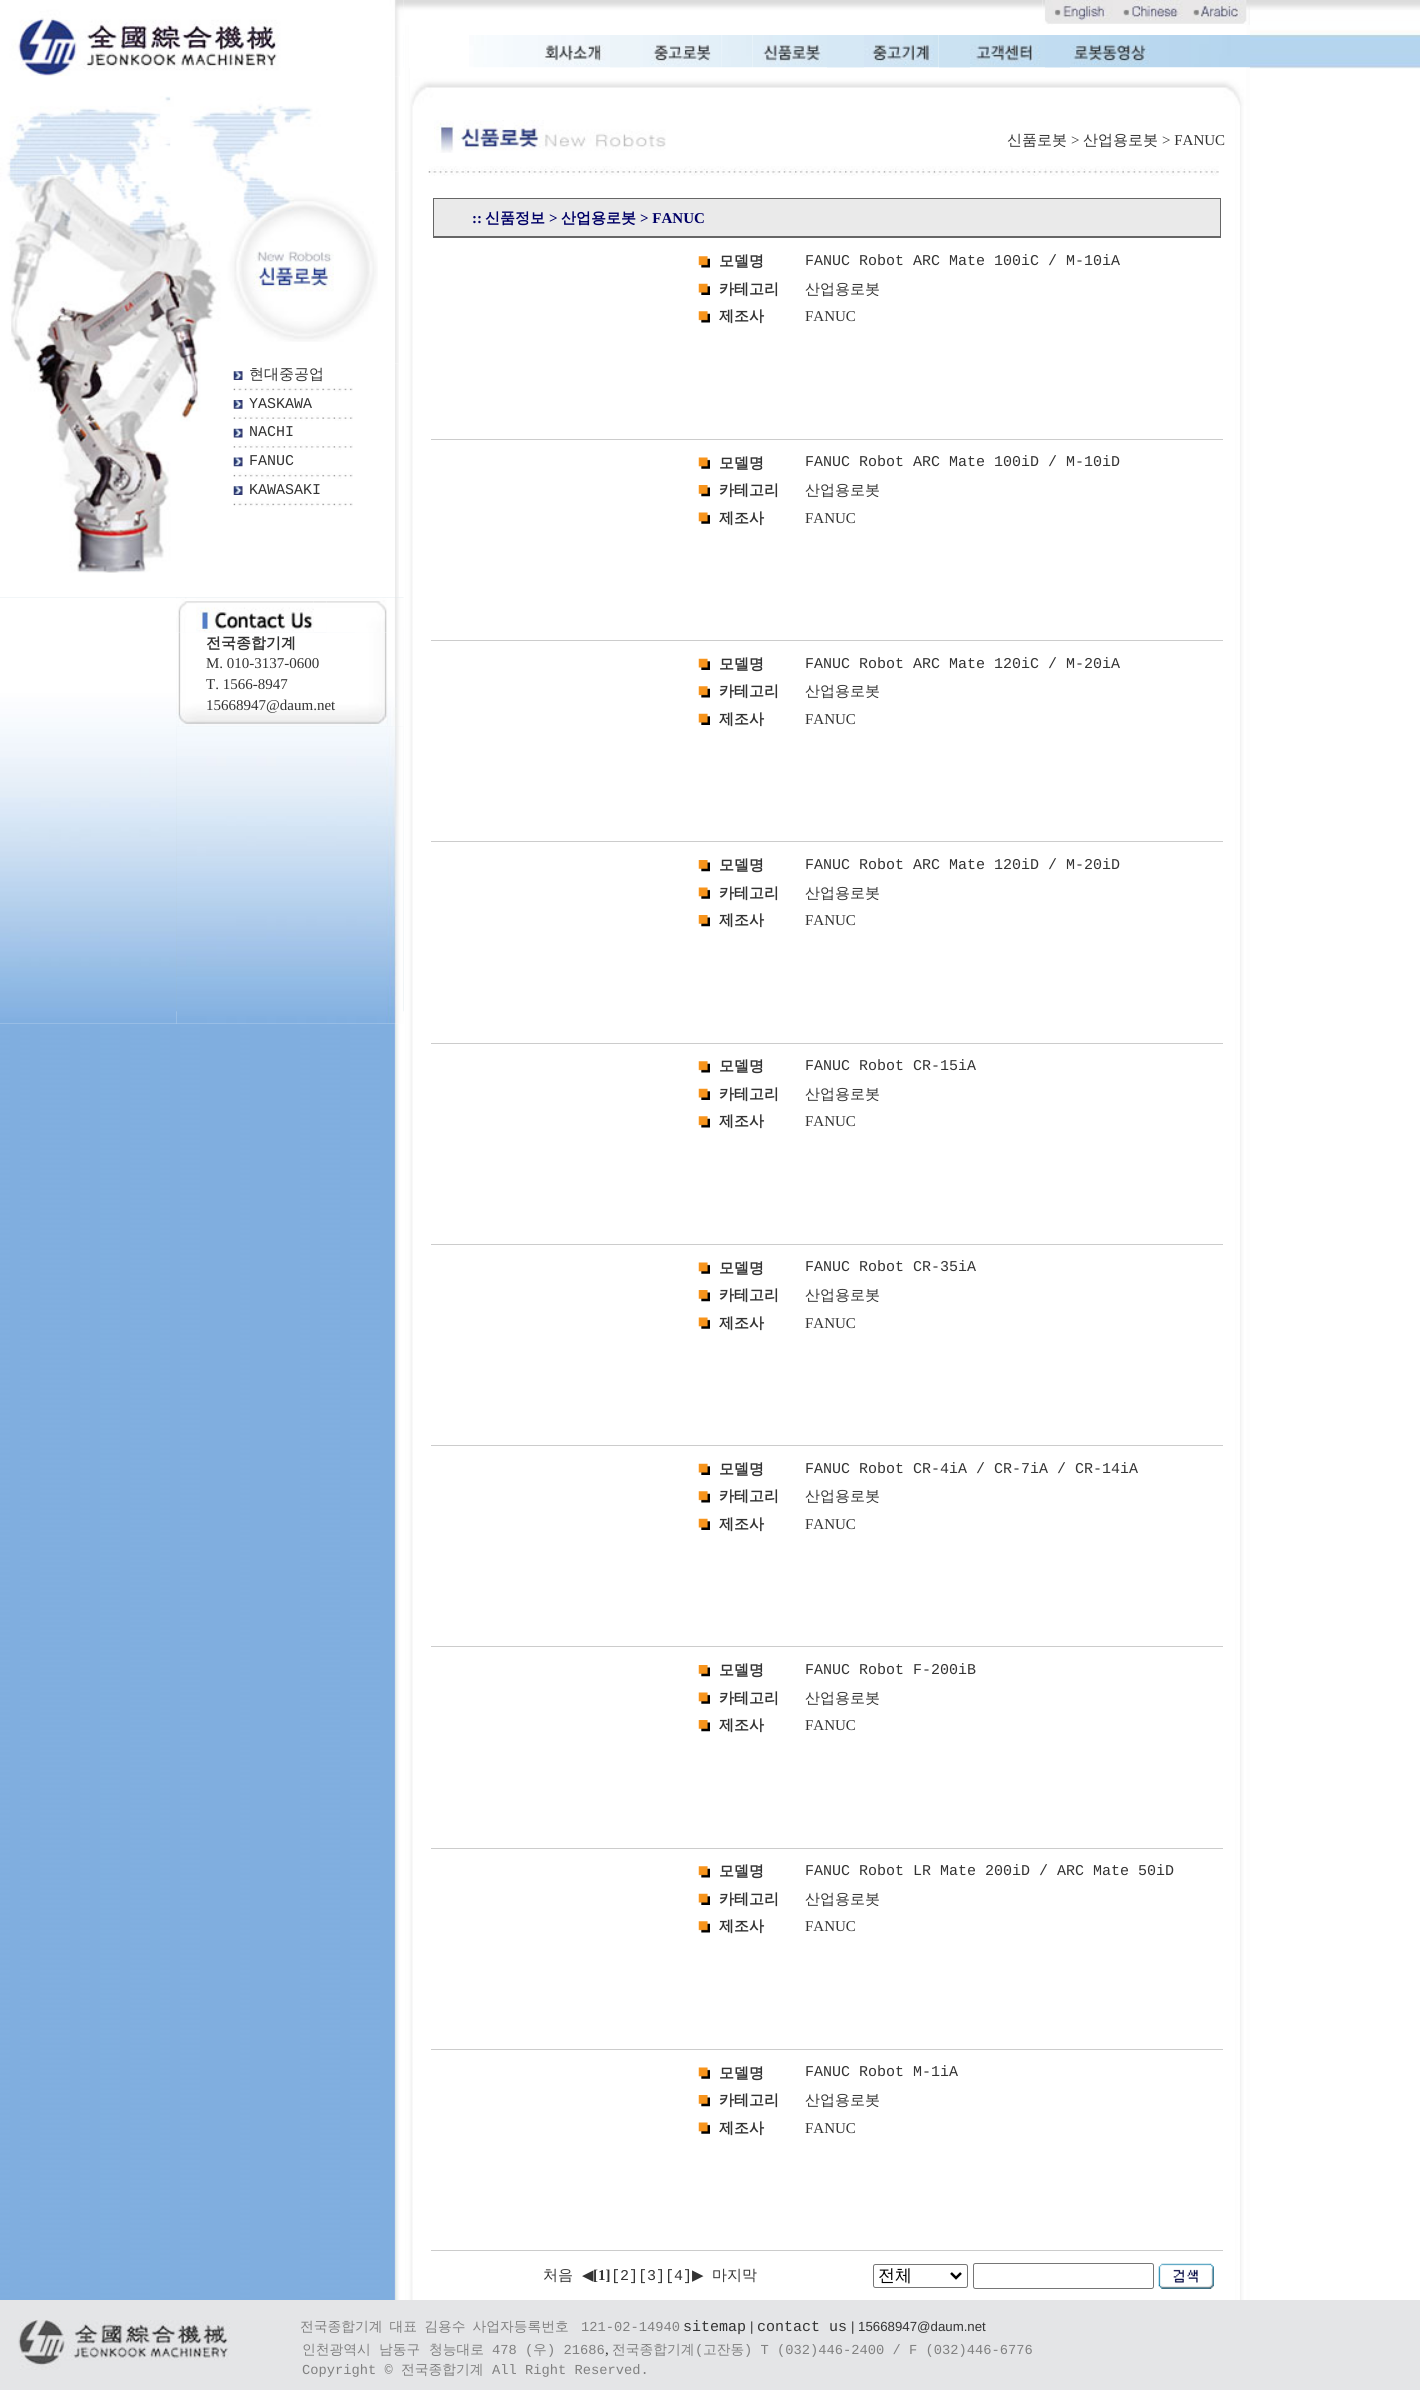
#include <cairo.h>
#include <math.h>
#include <stddef.h>

typedef struct { const char *family; double size; int italic, bold; unsigned color; } style_t;
static cairo_t *ctx;

static void ink(unsigned color) {
    cairo_set_source_rgb(ctx, (color >> 16) / 255.0, (color >> 8 & 255) / 255.0, (color & 255) / 255.0);
}

static void write(double x, double y, const char *s, const style_t *st) {
    cairo_select_font_face(ctx, st->family, st->italic ? CAIRO_FONT_SLANT_ITALIC : CAIRO_FONT_SLANT_NORMAL,
        st->bold ? CAIRO_FONT_WEIGHT_BOLD : CAIRO_FONT_WEIGHT_NORMAL);
    cairo_set_font_size(ctx, st->size);
    ink(st->color);
    cairo_move_to(ctx, x, y);
    cairo_show_text(ctx, s);
}

static void write_spaced(double x, double y, const char *s, double letter, double word) {
    cairo_move_to(ctx, x, y);
    while (*s) {
        char ch[5] = {0};
        int n = 0;
        do ch[n++] = *s++; while ((*s & 0xC0) == 0x80);
        cairo_show_text(ctx, ch);
        cairo_rel_move_to(ctx, letter + word * (*ch == ' '), 0);
    }
}

static void block(double x, double y, double w, double h, unsigned color) {
    ink(color);
    cairo_rectangle(ctx, x, y, w, h);
    cairo_fill(ctx);
}

static void round_path(double x, double y, double w, double h, double r) {
    cairo_new_sub_path(ctx);
    cairo_arc(ctx, x + w - r, y + h - r, r, 0, M_PI / 2);
    cairo_arc(ctx, x + r, y + h - r, r, M_PI / 2, M_PI);
    cairo_arc(ctx, x + r, y + r, r, M_PI, 1.5 * M_PI);
    cairo_arc(ctx, x + w - r, y + r, r, 1.5 * M_PI, 2 * M_PI);
    cairo_close_path(ctx);
}

static void paste(const char *path, double x, double y, double w, double h) {
    cairo_surface_t *image = cairo_image_surface_create_from_png(path);
    cairo_save(ctx);
    cairo_set_source_surface(ctx, image, x, y);
    cairo_rectangle(ctx, x, y, w, h);
    cairo_fill(ctx);
    cairo_restore(ctx);
    cairo_surface_destroy(image);
}

static const style_t s1 = {"WenQuanYi Zen Hei Medium", 15, 0, 0, 0x333333};
static const style_t s2 = {"Liberation Mono", 15, 0, 0, 0x333333};
static const style_t s3 = {"WenQuanYi Zen Hei", 15, 0, 1, 0x333333};
static const style_t s4 = {"Liberation Serif", 15, 0, 0, 0x333333};
static const style_t s5 = {"Liberation Serif", 15, 0, 1, 0x000066};
static const style_t s6 = {"WenQuanYi Zen Hei", 15, 0, 1, 0x000066};
static const style_t s7 = {"DejaVu Sans", 15, 0, 0, 0x333333};
static const style_t s8 = {"Liberation Serif", 15, 0, 1, 0x333333};
static const style_t s9 = {"WenQuanYi Zen Hei Medium", 17, 0, 0, 0x000000};
static const style_t s10 = {"Liberation Mono", 13.75, 0, 0, 0x808080};
static const style_t s11 = {"Liberation Sans", 13.25, 0, 0, 0x333333};
static const style_t s12 = {"WenQuanYi Zen Hei Medium", 13.75, 0, 0, 0x808080};

int main(void) {
    cairo_surface_t *surface = cairo_image_surface_create(CAIRO_FORMAT_RGB24, 1420, 2407);
    ctx = cairo_create(surface);
    cairo_font_options_t *options = cairo_font_options_create();
    cairo_font_options_set_hint_metrics(options, CAIRO_HINT_METRICS_OFF);
    cairo_font_options_set_hint_style(options, CAIRO_HINT_STYLE_NONE);
    cairo_set_font_options(ctx, options);
    cairo_set_miter_limit(ctx, 4);
    ink(0xffffff);
    cairo_paint(ctx);
    paste("pic1.png", 403, 0, 1017, 69);
    paste("pic2.png", 0, 0, 404, 2300);
    block(0, 76, 400, 522, 0xffffff);
    paste("pic8.png", 395, 364, 4, 234);
    paste("pic17.png", 0, 597, 404, 427);
    paste("pic27.png", 403, 0, 847, 2300);
    paste("pic3.png", 0, 0, 404, 77);
    paste("pic6.png", 395, 171, 4, 193);
    paste("pic4.png", 0, 76, 399, 96);
    paste("pic5.png", 0, 171, 234, 402);
    paste("pic7.png", 233, 171, 145, 171);
    paste("pic9.png", 233, 371, 10, 9);
    write(249, 379, "현대중공업", &s1);
    paste("pic10.png", 233, 386, 120, 6);
    paste("pic11.png", 233, 400, 10, 9);
    write(249, 408, "YASKAWA", &s2);
    paste("pic12.png", 233, 415, 120, 6);
    paste("pic13.png", 233, 428, 10, 10);
    write(249, 436, "NACHI", &s2);
    paste("pic14.png", 233, 444, 120, 6);
    paste("pic15.png", 233, 457, 10, 10);
    write(249, 465, "FANUC", &s2);
    paste("pic16.png", 233, 472, 120, 7);
    paste("pic9.png", 233, 486, 10, 9);
    write(249, 494, "KAWASAKI", &s2);
    paste("pic10.png", 233, 501, 120, 6);
    paste("pic18.png", 0, 597, 177, 427);
    paste("pic20.png", 313, 597, 14, 35);
    paste("pic19.png", 176, 597, 138, 36);
    paste("pic21.png", 326, 597, 62, 36);
    paste("pic22.png", 176, 632, 29, 95);
    paste("pic23.png", 205, 633, 150, 93);
    write(206, 648, "전국종합기계", &s3);
    write(206, 668, "M. 010-3137-0600", &s4);
    write(206, 689, "T. 1566-8947", &s4);
    write(206, 710, "15668947@daum.net", &s4);
    paste("pic24.png", 355, 632, 33, 95);
    paste("pic25.png", 387, 597, 17, 130);
    paste("pic26.png", 176, 726, 228, 298);
    paste("pic28.png", 404, 0, 639, 25);
    paste("pic29.png", 1042, 0, 208, 25);
    block(409, 25, 835, 43, 0xffffff);
    paste("pic30.png", 469, 35, 66, 33);
    paste("pic31.png", 535, 35, 75, 33);
    block(610, 35, 30, 33, 0xecf4f9);
    paste("pic32.png", 640, 35, 82, 33);
    paste("pic33.png", 721, 35, 32, 33);
    paste("pic34.png", 752, 35, 75, 33);
    block(827, 35, 37, 33, 0xd6e8f5);
    paste("pic35.png", 864, 35, 75, 33);
    block(939, 35, 31, 33, 0xcbe2f2);
    paste("pic36.png", 970, 35, 75, 33);
    block(1045, 35, 25, 33, 0xc1dcf1);
    paste("pic37.png", 1070, 35, 80, 33);
    paste("pic38.png", 1150, 35, 100, 33);
    paste("pic39.png", 410, 67, 840, 39);
    paste("pic40.png", 434, 120, 232, 33);
    write(1007, 145, "신품로봇", &s1);
    write(1071, 145, ">", &s4);
    write(1083, 145, "산업용로봇", &s1);
    write(1162, 145, "> FANUC", &s4);
    paste("pic41.png", 428, 166, 791, 10);
    block(433, 198, 788, 40, 0x666666);
    block(434, 199, 786, 37, 0xeaeaea);
    write(472, 223, "::", &s5);
    write(485, 223, "신품정보", &s6);
    write(549, 223, ">", &s5);
    write(561, 223, "산업용로봇", &s6);
    write(640, 223, "> FANUC", &s5);
    block(431, 439, 792, 1, 0xcccccc);
    paste("pic42.png", 698, 256, 12, 12);
    write(719, 266, "모델명", &s3);
    write(805, 265, "FANUC Robot ARC Mate 100iC / M-10iA", &s2);
    paste("pic43.png", 698, 283, 12, 12);
    write(719, 294, "카테고리", &s3);
    write(805, 294, "산업용로봇", &s1);
    paste("pic42.png", 698, 311, 12, 12);
    write(719, 321, "제조사", &s3);
    write(805, 321, "FANUC", &s4);
    block(431, 640, 792, 1, 0xcccccc);
    paste("pic44.png", 698, 457, 12, 12);
    write(719, 468, "모델명", &s3);
    write(805, 466, "FANUC Robot ARC Mate 100iD / M-10iD", &s2);
    paste("pic45.png", 698, 485, 12, 12);
    write(719, 495, "카테고리", &s3);
    write(805, 495, "산업용로봇", &s1);
    paste("pic44.png", 698, 512, 12, 12);
    write(719, 523, "제조사", &s3);
    write(805, 523, "FANUC", &s4);
    block(431, 841, 792, 1, 0xcccccc);
    paste("pic43.png", 698, 658, 12, 12);
    write(719, 669, "모델명", &s3);
    write(805, 668, "FANUC Robot ARC Mate 120iC / M-20iA", &s2);
    paste("pic42.png", 698, 686, 12, 12);
    write(719, 696, "카테고리", &s3);
    write(805, 696, "산업용로봇", &s1);
    paste("pic43.png", 698, 713, 12, 12);
    write(719, 724, "제조사", &s3);
    write(805, 724, "FANUC", &s4);
    block(431, 1043, 792, 1, 0xcccccc);
    paste("pic45.png", 698, 860, 12, 12);
    write(719, 870, "모델명", &s3);
    write(805, 869, "FANUC Robot ARC Mate 120iD / M-20iD", &s2);
    paste("pic44.png", 698, 887, 12, 12);
    write(719, 898, "카테고리", &s3);
    write(805, 898, "산업용로봇", &s1);
    paste("pic45.png", 698, 915, 12, 12);
    write(719, 925, "제조사", &s3);
    write(805, 925, "FANUC", &s4);
    block(431, 1244, 792, 1, 0xcccccc);
    paste("pic42.png", 698, 1061, 12, 12);
    write(719, 1071, "모델명", &s3);
    write(805, 1070, "FANUC Robot CR-15iA", &s2);
    paste("pic43.png", 698, 1088, 12, 12);
    write(719, 1099, "카테고리", &s3);
    write(805, 1099, "산업용로봇", &s1);
    paste("pic42.png", 698, 1116, 12, 12);
    write(719, 1126, "제조사", &s3);
    write(805, 1126, "FANUC", &s4);
    block(431, 1445, 792, 1, 0xcccccc);
    paste("pic44.png", 698, 1262, 12, 12);
    write(719, 1273, "모델명", &s3);
    write(805, 1271, "FANUC Robot CR-35iA", &s2);
    paste("pic45.png", 698, 1290, 12, 12);
    write(719, 1300, "카테고리", &s3);
    write(805, 1300, "산업용로봇", &s1);
    paste("pic44.png", 698, 1317, 12, 12);
    write(719, 1328, "제조사", &s3);
    write(805, 1328, "FANUC", &s4);
    block(431, 1646, 792, 1, 0xcccccc);
    paste("pic43.png", 698, 1463, 12, 12);
    write(719, 1474, "모델명", &s3);
    write(805, 1473, "FANUC Robot CR-4iA / CR-7iA / CR-14iA", &s2);
    paste("pic42.png", 698, 1491, 12, 12);
    write(719, 1501, "카테고리", &s3);
    write(805, 1501, "산업용로봇", &s1);
    paste("pic43.png", 698, 1518, 12, 12);
    write(719, 1529, "제조사", &s3);
    write(805, 1529, "FANUC", &s4);
    block(431, 1848, 792, 1, 0xcccccc);
    paste("pic45.png", 698, 1665, 12, 12);
    write(719, 1675, "모델명", &s3);
    write(805, 1674, "FANUC Robot F-200iB", &s2);
    paste("pic44.png", 698, 1692, 12, 12);
    write(719, 1703, "카테고리", &s3);
    write(805, 1703, "산업용로봇", &s1);
    paste("pic45.png", 698, 1720, 12, 12);
    write(719, 1730, "제조사", &s3);
    write(805, 1730, "FANUC", &s4);
    block(431, 2049, 792, 1, 0xcccccc);
    paste("pic42.png", 698, 1866, 12, 12);
    write(719, 1876, "모델명", &s3);
    write(805, 1875, "FANUC Robot LR Mate 200iD / ARC Mate 50iD", &s2);
    paste("pic43.png", 698, 1893, 12, 12);
    write(719, 1904, "카테고리", &s3);
    write(805, 1904, "산업용로봇", &s1);
    paste("pic42.png", 698, 1921, 12, 12);
    write(719, 1931, "제조사", &s3);
    write(805, 1931, "FANUC", &s4);
    block(431, 2250, 792, 1, 0xcccccc);
    paste("pic44.png", 698, 2067, 12, 12);
    write(719, 2078, "모델명", &s3);
    write(805, 2076, "FANUC Robot M-1iA", &s2);
    paste("pic45.png", 698, 2095, 12, 12);
    write(719, 2105, "카테고리", &s3);
    write(805, 2105, "산업용로봇", &s1);
    paste("pic44.png", 698, 2122, 12, 12);
    write(719, 2133, "제조사", &s3);
    write(805, 2133, "FANUC", &s4);
    write(543, 2280, "처음", &s1);
    write(582, 2280, "◀", &s7);
    write(593, 2280, "[1]", &s8);
    write(611, 2280, "[2][3][4]", &s2);
    write(692, 2280, "▶", &s7);
    write(712, 2280, "마지막", &s1);
    round_path(873.5, 2264.5, 94, 23, 2);
    ink(0x767676);
    cairo_set_line_width(ctx, 1);
    cairo_stroke(ctx);
    cairo_new_path(ctx);
    cairo_move_to(ctx, 951, 2273);
    cairo_line_to(ctx, 956, 2278);
    cairo_line_to(ctx, 961, 2273);
    ink(0x000000);
    cairo_set_line_width(ctx, 2.5);
    cairo_stroke(ctx);
    write(878, 2281, "전체", &s9);
    round_path(973.5, 2263.5, 180, 25, 2);
    ink(0x767676);
    cairo_set_line_width(ctx, 1);
    cairo_stroke(ctx);
    paste("pic46.png", 1158, 2263, 56, 26);
    block(0, 2300, 1420, 90, 0xe4e5e7);
    paste("pic47.png", 18, 2320, 212, 50);
    cairo_set_font_size(ctx, 13.75);
    ink(0x808080);
    write_spaced(300, 2331, "전국종합기계 대표 김용수 사업자등록번호", 0, 3);
    write(581, 2331, "121-02-14940", &s10);
    write(683, 2331, "sitemap", &s2);
    write(750, 2331, "|", &s11);
    write(757, 2331, "contact us", &s2);
    write(851, 2331, "| 15668947@daum.net", &s11);
    write(302, 2354, "인천광역시", &s12);
    write(379, 2354, "남동구", &s12);
    write(429, 2354, "청능대로", &s12);
    write(492, 2354, "478 (", &s10);
    write(533, 2354, "우", &s12);
    write(547, 2354, ") 21686", &s10);
    write(605, 2354, ",", &s4);
    write(612, 2354, "전국종합기계", &s12);
    write(695, 2354, "(", &s10);
    write(703, 2354, "고잔동", &s12);
    write(744, 2354, ") T (032)446-2400 / F (032)446-6776", &s10);
    write(302, 2374, "Copyright ©", &s10);
    write(401, 2374, "전국종합기계", &s12);
    write(492, 2374, "All Right Reserved.", &s10);
    cairo_surface_write_to_png(surface, "screenshot.png");
    cairo_font_options_destroy(options);
    cairo_destroy(ctx);
    cairo_surface_destroy(surface);
    return 0;
}
